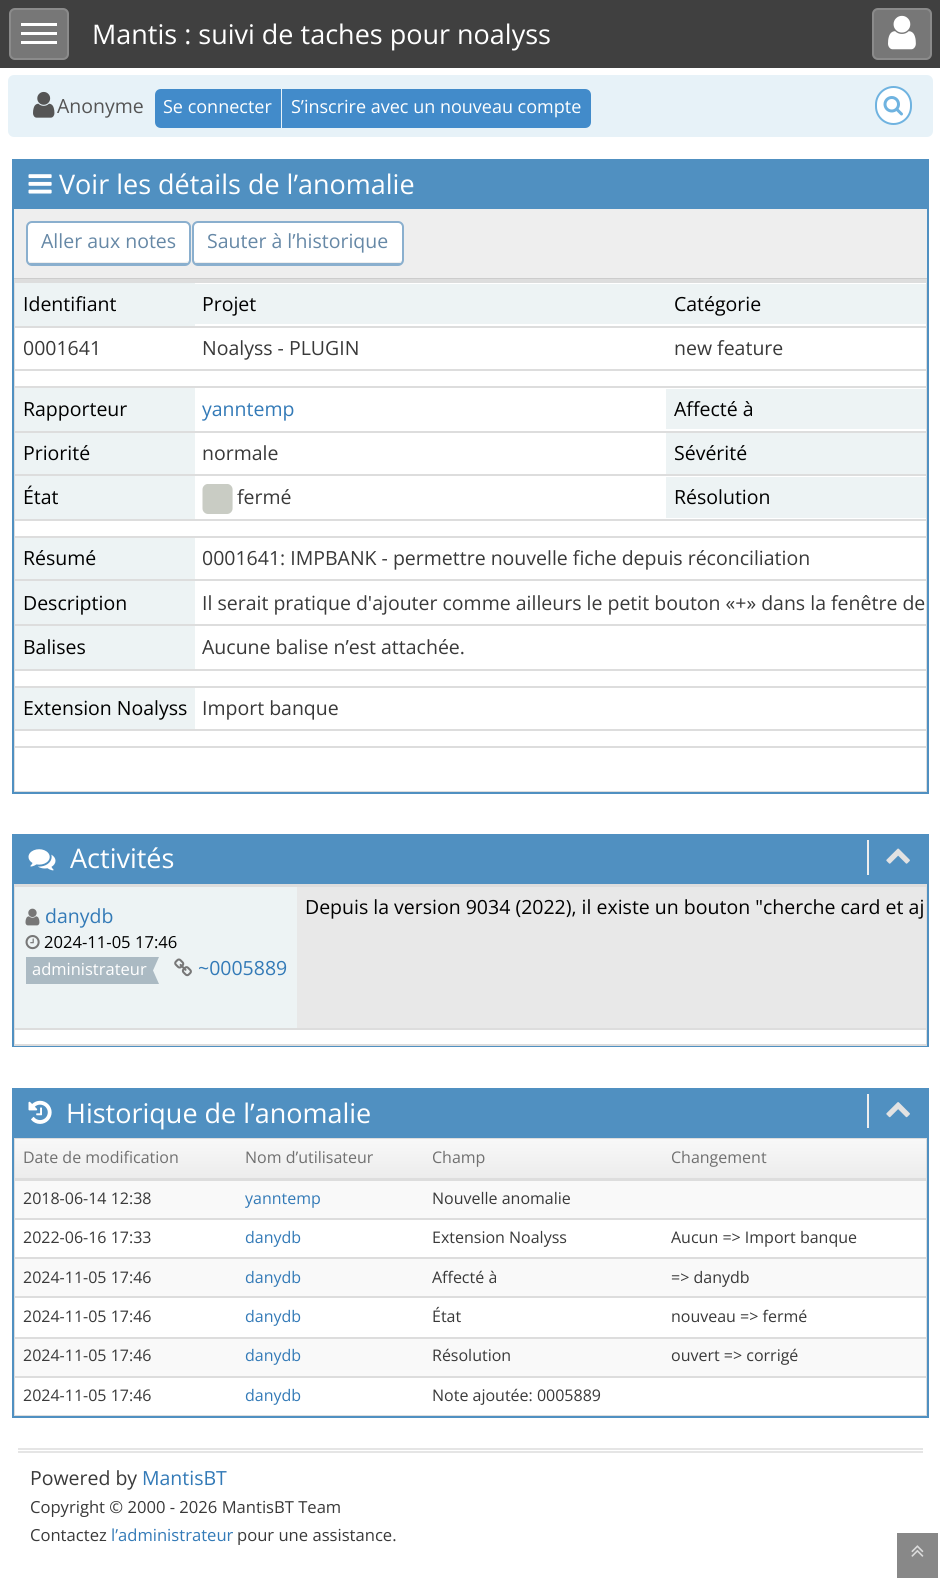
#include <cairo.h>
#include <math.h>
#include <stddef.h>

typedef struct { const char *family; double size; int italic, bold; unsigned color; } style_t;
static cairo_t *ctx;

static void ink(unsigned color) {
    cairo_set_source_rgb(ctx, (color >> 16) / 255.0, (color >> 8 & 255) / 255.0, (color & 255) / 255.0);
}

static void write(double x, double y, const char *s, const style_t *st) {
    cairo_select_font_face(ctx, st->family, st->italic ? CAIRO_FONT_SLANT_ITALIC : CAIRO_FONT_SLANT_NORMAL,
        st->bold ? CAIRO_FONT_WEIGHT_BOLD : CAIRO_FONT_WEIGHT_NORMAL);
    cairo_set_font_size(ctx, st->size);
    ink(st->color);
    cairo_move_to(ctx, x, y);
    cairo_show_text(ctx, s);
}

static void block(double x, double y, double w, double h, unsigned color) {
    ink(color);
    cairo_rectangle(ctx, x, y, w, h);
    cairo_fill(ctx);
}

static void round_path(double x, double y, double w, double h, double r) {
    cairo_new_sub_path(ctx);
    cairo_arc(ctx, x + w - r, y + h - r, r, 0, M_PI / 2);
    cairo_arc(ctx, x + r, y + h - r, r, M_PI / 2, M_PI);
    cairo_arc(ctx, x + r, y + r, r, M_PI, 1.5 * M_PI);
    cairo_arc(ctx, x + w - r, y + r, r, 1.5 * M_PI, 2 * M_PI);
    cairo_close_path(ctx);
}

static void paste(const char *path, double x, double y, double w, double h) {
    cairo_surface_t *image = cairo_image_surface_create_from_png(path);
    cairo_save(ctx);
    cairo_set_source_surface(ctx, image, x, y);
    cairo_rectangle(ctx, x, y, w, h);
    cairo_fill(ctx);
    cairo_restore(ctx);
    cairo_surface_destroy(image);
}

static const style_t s1 = {"Open Sans", 27, 0, 0, 0xffffff};
static const style_t s2 = {"Open Sans", 19.5, 0, 0, 0x555555};
static const style_t s3 = {"Open Sans", 18, 0, 0, 0xffffff};
static const style_t s4 = {"Open Sans", 19.5, 0, 0, 0x6688a6};
static const style_t s5 = {"Open Sans", 19.5, 0, 0, 0x000000};
static const style_t s6 = {"Open Sans", 19.5, 0, 0, 0x393939};
static const style_t s7 = {"Open Sans", 19.5, 0, 0, 0x337ab7};
static const style_t s8 = {"Open Sans", 16.6, 0, 0, 0x000000};
static const style_t s9 = {"Open Sans", 16.5, 0, 0, 0xffffff};
static const style_t s10 = {"Open Sans", 16, 0, 0, 0x707070};
static const style_t s11 = {"Open Sans", 16, 0, 0, 0x393939};
static const style_t s12 = {"Open Sans", 16, 0, 0, 0x337ab7};
static const style_t s13 = {"Open Sans", 16.6, 0, 0, 0x393939};
static const style_t s14 = {"Open Sans", 16.6, 0, 0, 0x337ab7};

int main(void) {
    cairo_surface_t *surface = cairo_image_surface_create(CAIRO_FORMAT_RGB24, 940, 1580);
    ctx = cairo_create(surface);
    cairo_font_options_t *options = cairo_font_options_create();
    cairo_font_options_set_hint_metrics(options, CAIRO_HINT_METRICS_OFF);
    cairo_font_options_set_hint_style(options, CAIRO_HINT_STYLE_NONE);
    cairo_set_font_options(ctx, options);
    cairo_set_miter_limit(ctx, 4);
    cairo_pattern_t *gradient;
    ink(0xffffff);
    cairo_paint(ctx);
    block(0, 0, 940, 68, 0x404040);
    ink(0x777777);
    round_path(9, 8, 60, 52, 6);
    cairo_fill(ctx);
    round_path(10, 9, 58, 50, 5);
    cairo_set_source_rgba(ctx, 1, 1, 1, 0.15);
    cairo_stroke(ctx);
    block(21, 23, 36, 3, 0xffffff);
    block(21, 32, 36, 3, 0xffffff);
    block(21, 41, 36, 3, 0xffffff);
    write(92, 44, "Mantis : suivi de taches pour noalyss", &s1);
    ink(0x777777);
    round_path(872, 8, 60, 52, 6);
    cairo_fill(ctx);
    round_path(873, 9, 58, 50, 5);
    cairo_set_source_rgba(ctx, 1, 1, 1, 0.15);
    cairo_stroke(ctx);
    paste("pic1.png", 888, 15, 28, 35);
    ink(0xe7f2f8);
    round_path(8, 75, 925, 62, 6);
    cairo_fill(ctx);
    paste("pic2.png", 33, 91, 22, 27);
    write(57, 113, "Anonyme", &s2);
    ink(0x428bca);
    cairo_new_path(ctx);
    cairo_move_to(ctx, 161, 90);
    cairo_line_to(ctx, 280, 90);
    cairo_line_to(ctx, 280, 127);
    cairo_line_to(ctx, 161, 127);
    cairo_curve_to(ctx, 158, 127, 156, 125, 156, 122);
    cairo_line_to(ctx, 156, 95);
    cairo_curve_to(ctx, 156, 92, 158, 90, 161, 90);
    cairo_close_path(ctx);
    cairo_fill_preserve(ctx);
    cairo_stroke(ctx);
    write(163, 113, "Se connecter", &s3);
    ink(0x428bca);
    cairo_new_path(ctx);
    cairo_move_to(ctx, 283, 90);
    cairo_line_to(ctx, 585, 90);
    cairo_curve_to(ctx, 588, 90, 590, 92, 590, 95);
    cairo_line_to(ctx, 590, 122);
    cairo_curve_to(ctx, 590, 125, 588, 127, 585, 127);
    cairo_line_to(ctx, 283, 127);
    cairo_close_path(ctx);
    cairo_fill_preserve(ctx);
    cairo_stroke(ctx);
    write(291, 113, "S’inscrire avec un nouveau compte", &s3);
    round_path(876, 87, 35, 37, 17.5);
    cairo_fill_preserve(ctx);
    ink(0x6fb3e0);
    cairo_stroke(ctx);
    paste("pic3.png", 883, 96, 20, 20);
    cairo_rectangle(ctx, 13, 160, 915, 633);
    ink(0x5090c1);
    cairo_stroke(ctx);
    block(14, 161, 913, 48, 0x5090c1);
    paste("pic4.png", 28, 174, 24, 20);
    write(59, 194, "Voir les détails de l’anomalie", &s1);
    block(14, 209, 913, 69, 0xeeeeee);
    block(14, 278, 913, 1, 0xcccccc);
    ink(0xffffff);
    cairo_new_path(ctx);
    cairo_move_to(ctx, 32, 222);
    cairo_line_to(ctx, 184, 222);
    cairo_curve_to(ctx, 187, 222, 189, 224, 189, 226);
    cairo_line_to(ctx, 189, 260);
    cairo_curve_to(ctx, 189, 261, 187, 262, 184, 262);
    cairo_line_to(ctx, 32, 262);
    cairo_curve_to(ctx, 29, 262, 27, 261, 27, 260);
    cairo_line_to(ctx, 27, 226);
    cairo_curve_to(ctx, 27, 224, 29, 222, 32, 222);
    cairo_close_path(ctx);
    cairo_fill(ctx);
    round_path(27, 222, 163, 43, 5);
    ink(0x8aafce);
    cairo_stroke(ctx);
    block(29, 263, 159, 1, 0x8aafce);
    write(41, 248, "Aller aux notes", &s4);
    ink(0xffffff);
    cairo_new_path(ctx);
    cairo_move_to(ctx, 198, 222);
    cairo_line_to(ctx, 398, 222);
    cairo_curve_to(ctx, 400, 222, 402, 224, 402, 226);
    cairo_line_to(ctx, 402, 260);
    cairo_curve_to(ctx, 402, 261, 400, 262, 398, 262);
    cairo_line_to(ctx, 198, 262);
    cairo_curve_to(ctx, 196, 262, 194, 261, 194, 260);
    cairo_line_to(ctx, 194, 226);
    cairo_curve_to(ctx, 194, 224, 196, 222, 198, 222);
    cairo_close_path(ctx);
    cairo_fill(ctx);
    round_path(193, 222, 210, 43, 5);
    ink(0x8aafce);
    cairo_stroke(ctx);
    block(195, 263, 206, 1, 0x8aafce);
    write(207, 248, "Sauter à l’historique", &s4);
    cairo_rectangle(ctx, 15, 280, 911, 511);
    ink(0xdddddd);
    cairo_stroke(ctx);
    block(15, 283, 911, 508, 0xffffff);
    block(15, 283, 180, 43, 0xedf3f4);
    write(23, 311, "Identifiant", &s5);
    block(195, 284, 731, 40, 0xedf3f4);
    write(202, 311, "Projet", &s5);
    block(15, 281, 911, 2, 0xdddddd);
    write(674, 311, "Catégorie", &s5);
    write(23, 355, "0001641", &s6);
    write(202, 355, "Noalyss - PLUGIN", &s6);
    block(15, 326, 911, 2, 0xdddddd);
    write(674, 355, "new feature", &s6);
    block(15, 369, 911, 2, 0xdddddd);
    block(15, 388, 180, 43, 0xedf3f4);
    write(23, 416, "Rapporteur", &s5);
    write(202, 416, "yanntemp", &s7);
    block(666, 389, 260, 40, 0xedf3f4);
    block(15, 386, 911, 2, 0xdddddd);
    write(674, 416, "Affecté à", &s5);
    block(15, 433, 180, 41, 0xedf3f4);
    write(23, 460, "Priorité", &s5);
    write(202, 460, "normale", &s6);
    block(666, 433, 260, 41, 0xedf3f4);
    block(15, 431, 911, 2, 0xdddddd);
    write(674, 460, "Sévérité", &s5);
    block(15, 476, 180, 43, 0xedf3f4);
    write(23, 504, "État", &s5);
    paste("pic5.png", 202, 484, 31, 30);
    write(237, 504, "fermé", &s6);
    block(666, 477, 260, 41, 0xedf3f4);
    block(15, 474, 911, 2, 0xdddddd);
    write(674, 504, "Résolution", &s5);
    block(15, 519, 911, 2, 0xdddddd);
    block(15, 538, 180, 41, 0xedf3f4);
    write(23, 565, "Résumé", &s5);
    block(15, 536, 911, 2, 0xdddddd);
    write(202, 565, "0001641: IMPBANK - permettre nouvelle fiche depuis réconciliation", &s6);
    block(15, 581, 180, 43, 0xedf3f4);
    write(23, 610, "Description", &s5);
    block(15, 579, 911, 2, 0xdddddd);
    write(202, 610, "Il serait pratique d'ajouter comme ailleurs le petit bouton «+» dans la fenêtre de", &s6);
    block(15, 626, 180, 43, 0xedf3f4);
    write(23, 654, "Balises", &s5);
    block(15, 624, 911, 2, 0xdddddd);
    write(202, 654, "Aucune balise n’est attachée.", &s6);
    block(15, 669, 911, 2, 0xdddddd);
    block(15, 688, 180, 41, 0xedf3f4);
    write(23, 715, "Extension Noalyss", &s5);
    block(15, 686, 911, 2, 0xdddddd);
    write(202, 715, "Import banque", &s6);
    block(15, 729, 911, 2, 0xdddddd);
    block(15, 746, 911, 2, 0xdddddd);
    cairo_rectangle(ctx, 13, 835, 915, 211);
    ink(0x5090c1);
    cairo_stroke(ctx);
    block(14, 836, 913, 48, 0x5090c1);
    paste("pic6.png", 28, 849, 28, 22);
    write(70, 868, "Activités", &s1);
    block(867, 840, 2, 35, 0xeeeeee);
    paste("pic7.png", 886, 848, 24, 16);
    cairo_rectangle(ctx, 15, 885, 911, 160);
    ink(0xdddddd);
    cairo_stroke(ctx);
    block(15, 1030, 911, 14, 0xffffff);
    block(15, 887, 282, 141, 0xedf3f4);
    paste("pic8.png", 25, 908, 15, 18);
    write(45, 923, "danydb", &s7);
    paste("pic9.png", 25, 935, 15, 15);
    write(44, 948, "2024-11-05 17:46", &s8);
    block(26, 957, 127, 27, 0xabbac3);
    write(32, 975, "administrateur", &s9);
    ink(0xabbac3);
    cairo_new_path(ctx);
    cairo_move_to(ctx, 147, 957);
    cairo_line_to(ctx, 159, 957);
    cairo_line_to(ctx, 153, 970.5);
    cairo_close_path(ctx);
    cairo_fill(ctx);
    cairo_new_path(ctx);
    cairo_move_to(ctx, 159, 984);
    cairo_line_to(ctx, 147, 984);
    cairo_line_to(ctx, 153, 970.5);
    cairo_close_path(ctx);
    cairo_fill(ctx);
    paste("pic10.png", 174, 958, 18, 19);
    write(198, 975, "~0005889", &s7);
    block(297, 887, 629, 141, 0xe8e8e8);
    block(15, 886, 911, 1, 0xdddddd);
    write(305, 914, "Depuis la version 9034 (2022), il existe un bouton \"cherche card et aj", &s5);
    block(15, 1028, 911, 2, 0xdddddd);
    cairo_rectangle(ctx, 13, 1089, 915, 328);
    ink(0x5090c1);
    cairo_stroke(ctx);
    cairo_rectangle(ctx, 15, 1138, 911, 277);
    ink(0xdddddd);
    cairo_stroke(ctx);
    block(14, 1090, 913, 48, 0x5090c1);
    paste("pic11.png", 28, 1100, 24, 24);
    write(66, 1123, "Historique de l’anomalie", &s1);
    block(867, 1094, 2, 34, 0xeeeeee);
    paste("pic12.png", 886, 1102, 24, 16);
    block(15, 1220, 911, 195, 0xffffff);
    gradient = cairo_pattern_create_linear(470, 1139, 470, 1179);
    cairo_pattern_add_color_stop_rgba(gradient, 0, 0.973, 0.973, 0.973, 1);
    cairo_pattern_add_color_stop_rgba(gradient, 1, 0.925, 0.925, 0.925, 1);
    cairo_set_source(ctx, gradient);
    cairo_pattern_destroy(gradient);
    cairo_rectangle(ctx, 15, 1139, 911, 39);
    cairo_fill(ctx);
    write(23, 1163, "Date de modification", &s10);
    write(245, 1163, "Nom d’utilisateur", &s10);
    write(432, 1163, "Champ", &s10);
    block(15, 1178, 911, 3, 0xdddddd);
    write(671, 1163, "Changement", &s10);
    block(15, 1181, 911, 37, 0xf9f9f9);
    write(23, 1204, "2018-06-14 12:38", &s11);
    write(245, 1204, "yanntemp", &s12);
    write(432, 1204, "Nouvelle anomalie", &s11);
    write(23, 1243, "2022-06-16 17:33", &s11);
    write(245, 1243, "danydb", &s12);
    write(432, 1243, "Extension Noalyss", &s11);
    block(15, 1218, 911, 2, 0xdddddd);
    write(671, 1243, "Aucun => Import banque", &s11);
    block(15, 1259, 911, 37, 0xf9f9f9);
    write(23, 1283, "2024-11-05 17:46", &s11);
    write(245, 1283, "danydb", &s12);
    write(432, 1283, "Affecté à", &s11);
    block(15, 1257, 911, 2, 0xdddddd);
    write(671, 1283, "=> danydb", &s11);
    write(23, 1322, "2024-11-05 17:46", &s11);
    write(245, 1322, "danydb", &s12);
    write(432, 1322, "État", &s11);
    block(15, 1296, 911, 2, 0xdddddd);
    write(671, 1322, "nouveau => fermé", &s11);
    block(15, 1339, 911, 37, 0xf9f9f9);
    write(23, 1361, "2024-11-05 17:46", &s11);
    write(245, 1361, "danydb", &s12);
    write(432, 1361, "Résolution", &s11);
    block(15, 1337, 911, 2, 0xdddddd);
    write(671, 1361, "ouvert => corrigé", &s11);
    block(15, 1376, 911, 2, 0xdddddd);
    write(23, 1401, "2024-11-05 17:46", &s11);
    write(245, 1401, "danydb", &s12);
    write(432, 1401, "Note ajoutée: 0005889", &s11);
    block(18, 1448, 905, 2, 0xe5e5e5);
    block(18, 1451, 905, 2, 0xe5e5e5);
    write(30, 1485, "Powered by", &s6);
    write(142, 1485, "MantisBT", &s7);
    write(30, 1513, "Copyright © 2000 - 2026 MantisBT Team", &s13);
    write(30, 1541, "Contactez", &s13);
    write(111, 1541, "l’administrateur", &s14);
    write(237, 1541, "pour une assistance.", &s13);
    block(897, 1533, 41, 45, 0x888888);
    paste("pic13.png", 911, 1545, 13, 12);
    cairo_surface_write_to_png(surface, "screenshot.png");
    cairo_font_options_destroy(options);
    cairo_destroy(ctx);
    cairo_surface_destroy(surface);
    return 0;
}
